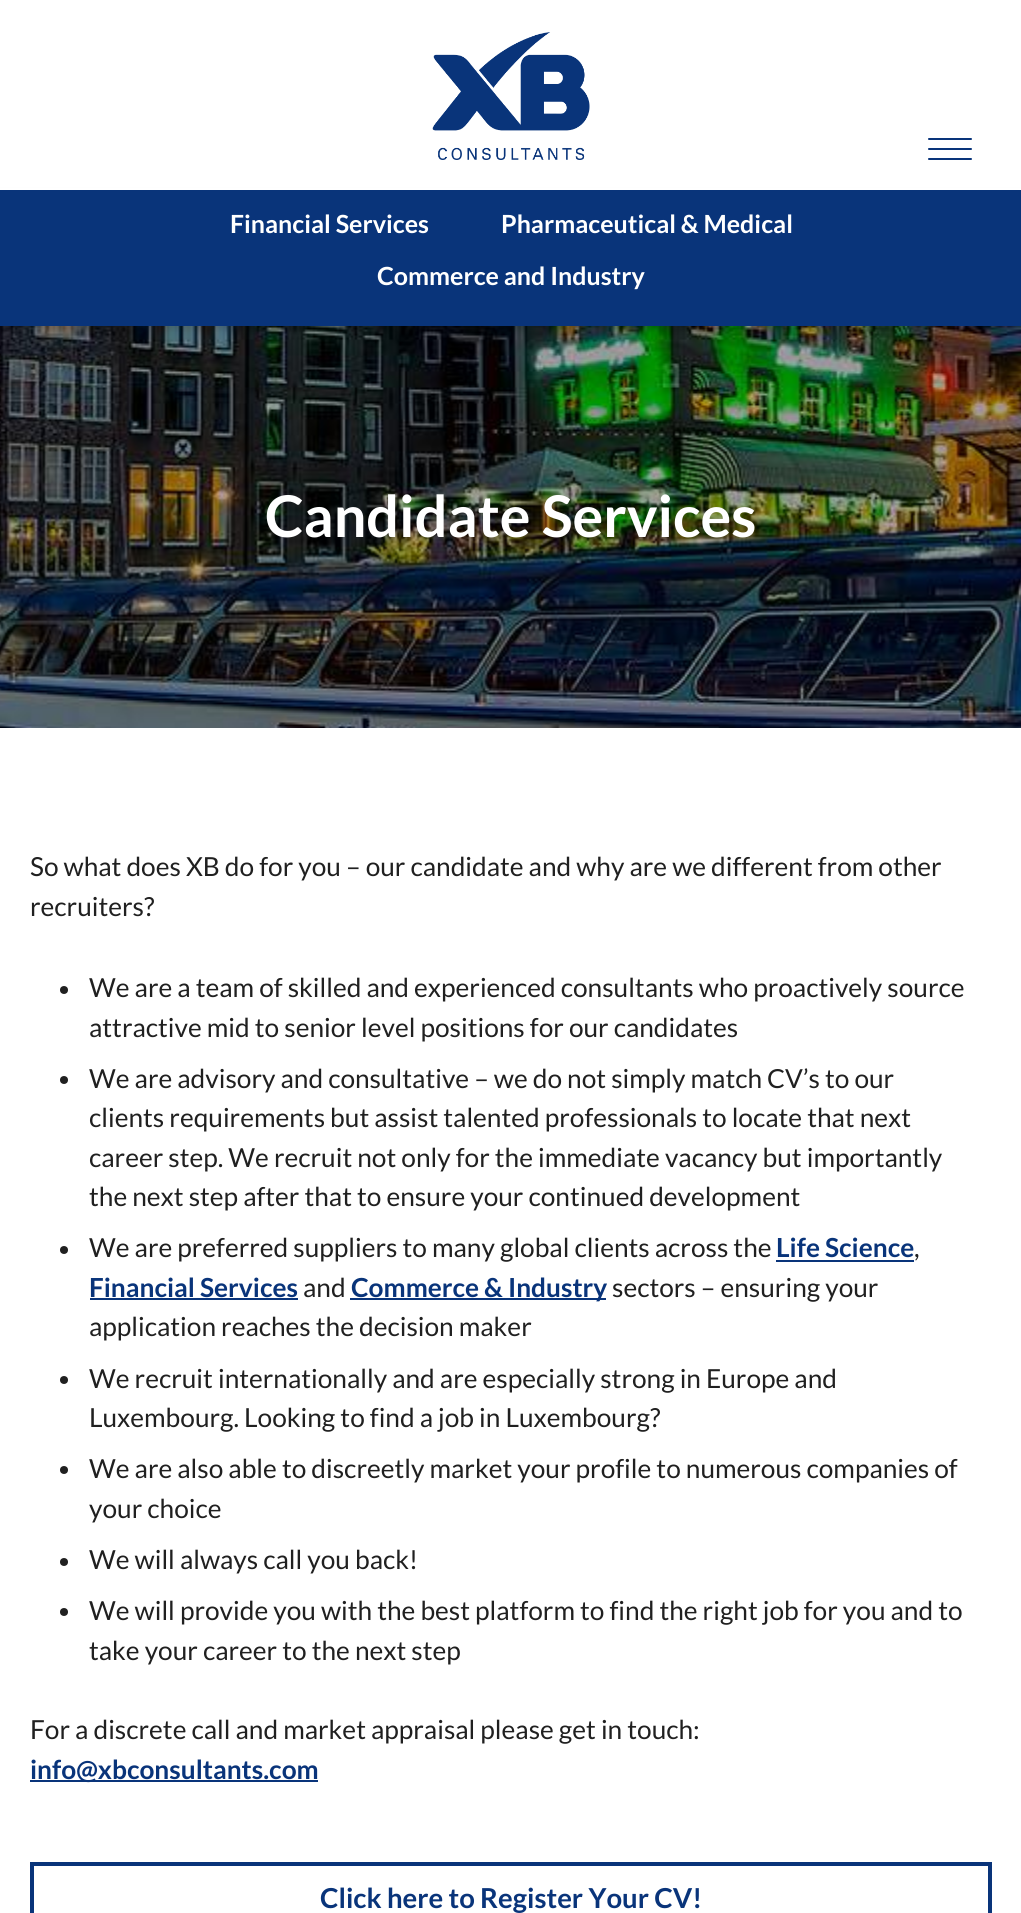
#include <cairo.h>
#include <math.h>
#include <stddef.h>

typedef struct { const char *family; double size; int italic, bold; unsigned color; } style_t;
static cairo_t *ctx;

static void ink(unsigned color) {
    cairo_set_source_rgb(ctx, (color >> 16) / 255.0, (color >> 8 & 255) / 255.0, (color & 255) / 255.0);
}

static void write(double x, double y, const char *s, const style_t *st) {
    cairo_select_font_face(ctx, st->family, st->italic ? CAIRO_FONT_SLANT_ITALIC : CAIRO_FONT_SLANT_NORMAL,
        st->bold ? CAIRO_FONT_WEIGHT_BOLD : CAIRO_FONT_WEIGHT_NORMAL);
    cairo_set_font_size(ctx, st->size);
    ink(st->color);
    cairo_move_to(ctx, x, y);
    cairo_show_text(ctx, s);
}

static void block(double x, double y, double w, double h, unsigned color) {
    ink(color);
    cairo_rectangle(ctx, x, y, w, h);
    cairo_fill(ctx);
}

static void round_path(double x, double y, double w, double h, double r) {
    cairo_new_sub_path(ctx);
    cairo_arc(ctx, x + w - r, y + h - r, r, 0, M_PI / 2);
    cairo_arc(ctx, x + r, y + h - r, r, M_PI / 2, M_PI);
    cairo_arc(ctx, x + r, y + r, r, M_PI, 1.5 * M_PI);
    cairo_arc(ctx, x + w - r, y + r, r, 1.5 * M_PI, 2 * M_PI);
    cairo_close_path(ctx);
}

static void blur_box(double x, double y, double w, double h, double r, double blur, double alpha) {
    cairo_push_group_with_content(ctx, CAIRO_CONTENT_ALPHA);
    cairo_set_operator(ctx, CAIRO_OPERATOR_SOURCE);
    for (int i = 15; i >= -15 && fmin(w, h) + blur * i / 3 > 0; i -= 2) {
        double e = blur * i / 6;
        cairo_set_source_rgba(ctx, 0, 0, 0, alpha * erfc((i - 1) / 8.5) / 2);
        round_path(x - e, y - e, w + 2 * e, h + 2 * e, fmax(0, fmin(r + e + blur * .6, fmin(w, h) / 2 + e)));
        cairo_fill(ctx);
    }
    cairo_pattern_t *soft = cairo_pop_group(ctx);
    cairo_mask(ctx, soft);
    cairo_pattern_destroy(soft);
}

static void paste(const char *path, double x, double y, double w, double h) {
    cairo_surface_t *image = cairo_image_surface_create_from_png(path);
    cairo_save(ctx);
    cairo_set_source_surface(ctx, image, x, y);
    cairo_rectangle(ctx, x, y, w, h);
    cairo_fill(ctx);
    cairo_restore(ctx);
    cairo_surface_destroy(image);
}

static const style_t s1 = {"Lato", 25, 0, 1, 0xffffff};
static const style_t s2 = {"Lato", 57.5, 0, 1, 0xffffff};
static const style_t s3 = {"Lato", 26.25, 0, 0, 0x202020};
static const style_t s4 = {"Lato", 26.25, 0, 1, 0x09347a};
static const style_t s5 = {"Lato", 27.5, 0, 1, 0x09347a};

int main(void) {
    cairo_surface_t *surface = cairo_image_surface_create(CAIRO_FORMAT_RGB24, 1021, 1913);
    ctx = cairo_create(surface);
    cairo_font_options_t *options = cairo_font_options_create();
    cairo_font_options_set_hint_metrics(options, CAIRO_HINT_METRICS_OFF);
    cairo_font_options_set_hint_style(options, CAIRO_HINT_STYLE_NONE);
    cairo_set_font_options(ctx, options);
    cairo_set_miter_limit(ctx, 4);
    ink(0xffffff);
    cairo_paint(ctx);
    paste("pic2.png", 0, 326, 1021, 402);
    ink(0x000000);
    blur_box(0, 194, 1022, 136, 0, 4, 0.15);
    block(0, 188, 1021, 2, 0xffffff);
    paste("pic1.png", 432, 32, 158, 128);
    ink(0x09347a);
    round_path(928, 138, 44, 2, 1);
    cairo_fill(ctx);
    round_path(928, 148, 44, 2, 1);
    cairo_fill(ctx);
    round_path(928, 158, 44, 2, 1);
    cairo_fill(ctx);
    block(0, 190, 1021, 136, 0x09347a);
    write(230, 233, "Financial Services", &s1);
    write(501, 233, "Pharmaceutical & Medical", &s1);
    write(377, 285, "Commerce and Industry", &s1);
    write(265, 537, "Candidate Services", &s2);
    write(30, 876, "So what does XB do for you – our candidate and why are we different from other", &s3);
    write(30, 916, "recruiters?", &s3);
    cairo_new_path(ctx);
    cairo_arc(ctx, 64, 990, 4, 0, 2 * M_PI);
    cairo_fill(ctx);
    write(89, 997, "We are a team of skilled and experienced consultants who proactively source", &s3);
    write(89, 1037, "attractive mid to senior level positions for our candidates", &s3);
    cairo_new_path(ctx);
    cairo_arc(ctx, 64, 1080, 4, 0, 2 * M_PI);
    cairo_fill(ctx);
    write(89, 1088, "We are advisory and consultative – we do not simply match CV’s to our", &s3);
    write(89, 1127, "clients requirements but assist talented professionals to locate that next", &s3);
    write(89, 1167, "career step. We recruit not only for the immediate vacancy but importantly", &s3);
    write(89, 1206, "the next step after that to ensure your continued development", &s3);
    cairo_new_path(ctx);
    cairo_arc(ctx, 64, 1250, 4, 0, 2 * M_PI);
    cairo_fill(ctx);
    write(89, 1257, "We are preferred suppliers to many global clients across the", &s3);
    write(776, 1257, "Life Science", &s4);
    block(776, 1260, 138, 2, 0x09347a);
    write(914, 1257, ",", &s3);
    write(89, 1297, "Financial Services", &s4);
    block(90, 1298, 208, 2, 0x09347a);
    write(303, 1297, "and", &s3);
    block(350, 1298, 256, 2, 0x09347a);
    write(351, 1297, "Commerce & Industry", &s4);
    write(612, 1297, "sectors – ensuring your", &s3);
    write(89, 1336, "application reaches the decision maker", &s3);
    cairo_new_path(ctx);
    cairo_arc(ctx, 64, 1380, 4, 0, 2 * M_PI);
    cairo_fill(ctx);
    write(89, 1388, "We recruit internationally and are especially strong in Europe and", &s3);
    write(89, 1427, "Luxembourg. Looking to find a job in Luxembourg?", &s3);
    cairo_new_path(ctx);
    cairo_arc(ctx, 64, 1470, 4, 0, 2 * M_PI);
    cairo_fill(ctx);
    write(89, 1478, "We are also able to discreetly market your profile to numerous companies of", &s3);
    write(89, 1518, "your choice", &s3);
    cairo_new_path(ctx);
    cairo_arc(ctx, 64, 1562, 4, 0, 2 * M_PI);
    cairo_fill(ctx);
    write(89, 1569, "We will always call you back!", &s3);
    cairo_new_path(ctx);
    cairo_arc(ctx, 64, 1612, 4, 0, 2 * M_PI);
    cairo_fill(ctx);
    write(89, 1620, "We will provide you with the best platform to find the right job for you and to", &s3);
    write(89, 1660, "take your career to the next step", &s3);
    write(30, 1739, "For a discrete call and market appraisal please get in touch:", &s3);
    block(30, 1780, 288, 2, 0x09347a);
    write(30, 1779, "info@xbconsultants.com", &s4);
    cairo_rectangle(ctx, 32, 1864, 958, 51);
    cairo_set_line_width(ctx, 4);
    cairo_stroke(ctx);
    write(320, 1908, "Click here to Register Your CV!", &s5);
    cairo_surface_write_to_png(surface, "screenshot.png");
    cairo_font_options_destroy(options);
    cairo_destroy(ctx);
    cairo_surface_destroy(surface);
    return 0;
}
